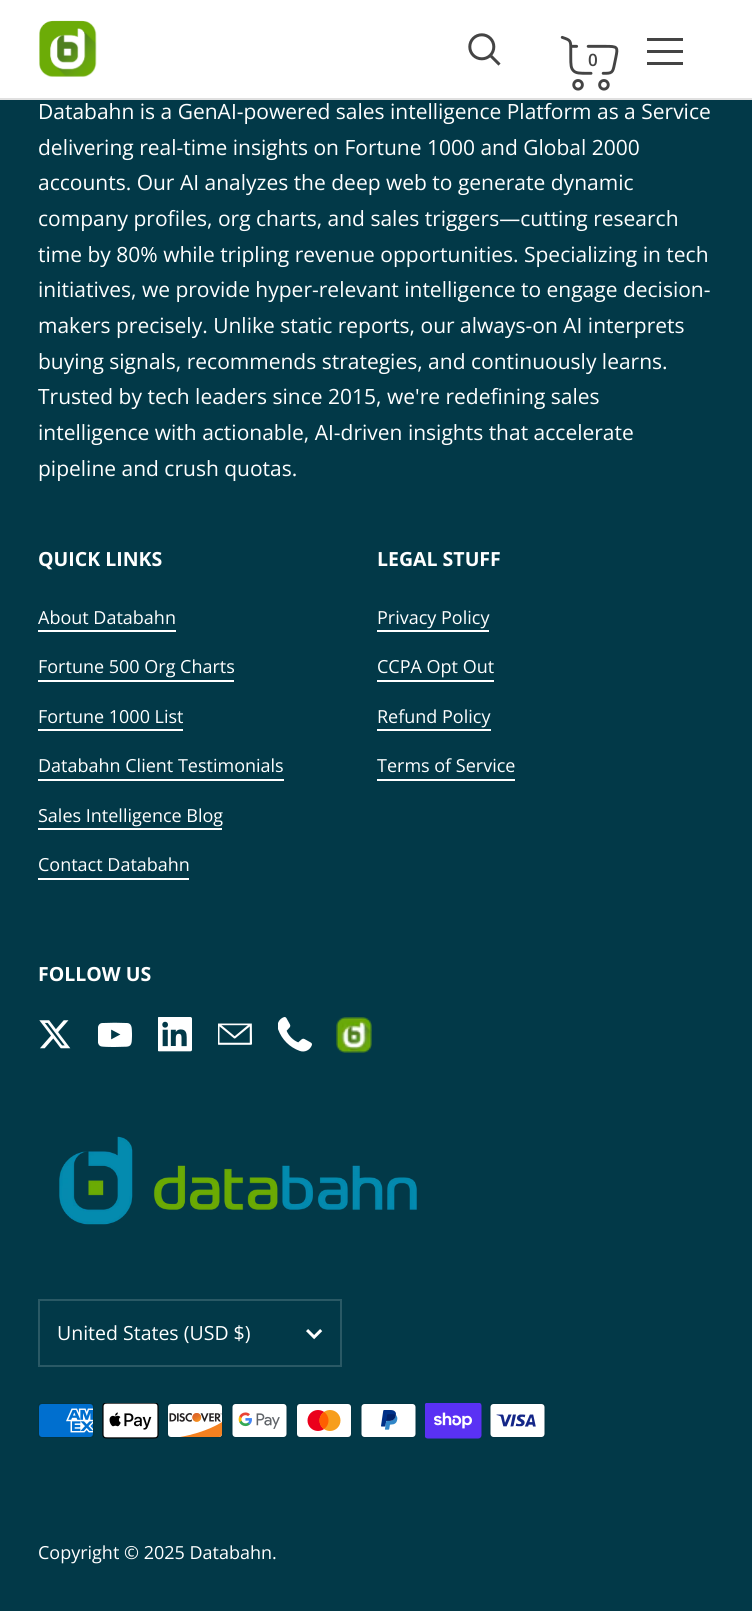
#include <cairo.h>
#include <math.h>
#include <stddef.h>

typedef struct { const char *family; double size; int italic, bold; unsigned color; } style_t;
static cairo_t *ctx;

static void ink(unsigned color) {
    cairo_set_source_rgb(ctx, (color >> 16) / 255.0, (color >> 8 & 255) / 255.0, (color & 255) / 255.0);
}

static void write(double x, double y, const char *s, const style_t *st) {
    cairo_select_font_face(ctx, st->family, st->italic ? CAIRO_FONT_SLANT_ITALIC : CAIRO_FONT_SLANT_NORMAL,
        st->bold ? CAIRO_FONT_WEIGHT_BOLD : CAIRO_FONT_WEIGHT_NORMAL);
    cairo_set_font_size(ctx, st->size);
    ink(st->color);
    cairo_move_to(ctx, x, y);
    cairo_show_text(ctx, s);
}

static void block(double x, double y, double w, double h, unsigned color) {
    ink(color);
    cairo_rectangle(ctx, x, y, w, h);
    cairo_fill(ctx);
}

static void paste(const char *path, double x, double y, double w, double h) {
    cairo_surface_t *image = cairo_image_surface_create_from_png(path);
    cairo_save(ctx);
    cairo_set_source_surface(ctx, image, x, y);
    cairo_rectangle(ctx, x, y, w, h);
    cairo_fill(ctx);
    cairo_restore(ctx);
    cairo_surface_destroy(image);
}

static const style_t s1 = {"Open Sans SemiBold", 17, 0, 0, 0x444444};
static const style_t s2 = {"Open Sans", 21, 0, 0, 0xffffff};
static const style_t s3 = {"Open Sans", 19.5, 0, 1, 0xffffff};
static const style_t s4 = {"Open Sans", 18, 0, 0, 0xffffff};
static const style_t s5 = {"Open Sans", 19.5, 0, 0, 0xffffff};

int main(void) {
    cairo_surface_t *surface = cairo_image_surface_create(CAIRO_FORMAT_RGB24, 752, 1611);
    ctx = cairo_create(surface);
    cairo_font_options_t *options = cairo_font_options_create();
    cairo_font_options_set_hint_metrics(options, CAIRO_HINT_METRICS_OFF);
    cairo_font_options_set_hint_style(options, CAIRO_HINT_STYLE_NONE);
    cairo_set_font_options(ctx, options);
    cairo_set_miter_limit(ctx, 4);
    ink(0x023948);
    cairo_paint(ctx);
    block(0, 98, 752, 2, 0xe0e0e0);
    block(0, 0, 752, 98, 0xffffff);
    paste("pic1.png", 39, 20, 58, 57);
    paste("pic2.png", 468, 33, 33, 33);
    paste("pic3.png", 560, 35, 59, 56);
    write(588, 66, "0", &s1);
    block(647, 38, 36, 3, 0x444444);
    block(647, 50, 36, 3, 0x444444);
    block(647, 62, 36, 3, 0x444444);
    write(38, 119, "Databahn is a GenAI-powered sales intelligence Platform as a Service", &s2);
    write(38, 155, "delivering real-time insights on Fortune 1000 and Global 2000", &s2);
    write(38, 190, "accounts. Our AI analyzes the deep web to generate dynamic", &s2);
    write(38, 226, "company profiles, org charts, and sales triggers—cutting research", &s2);
    write(38, 262, "time by 80% while tripling revenue opportunities. Specializing in tech", &s2);
    write(38, 297, "initiatives, we provide hyper-relevant intelligence to engage decision-", &s2);
    write(38, 333, "makers precisely. Unlike static reports, our always-on AI interprets", &s2);
    write(38, 369, "buying signals, recommends strategies, and continuously learns.", &s2);
    write(38, 404, "Trusted by tech leaders since 2015, we're redefining sales", &s2);
    write(38, 440, "intelligence with actionable, AI-driven insights that accelerate", &s2);
    write(38, 476, "pipeline and crush quotas.", &s2);
    write(38, 566, "QUICK LINKS", &s3);
    write(38, 624, "About Databahn", &s4);
    block(38, 630, 138, 2, 0xffffff);
    write(38, 673, "Fortune 500 Org Charts", &s4);
    block(38, 680, 196, 2, 0xffffff);
    write(38, 723, "Fortune 1000 List", &s4);
    block(38, 729, 145, 2, 0xffffff);
    write(38, 772, "Databahn Client Testimonials", &s4);
    block(38, 779, 246, 2, 0xffffff);
    write(38, 822, "Sales Intelligence Blog", &s4);
    block(38, 828, 184, 2, 0xffffff);
    write(38, 871, "Contact Databahn", &s4);
    block(38, 878, 151, 2, 0xffffff);
    write(377, 566, "LEGAL STUFF", &s3);
    write(377, 624, "Privacy Policy", &s4);
    block(377, 630, 112, 2, 0xffffff);
    write(377, 673, "CCPA Opt Out", &s4);
    block(377, 680, 117, 2, 0xffffff);
    write(377, 723, "Refund Policy", &s4);
    block(377, 729, 114, 2, 0xffffff);
    write(377, 772, "Terms of Service", &s4);
    block(377, 779, 138, 2, 0xffffff);
    write(38, 981, "FOLLOW US", &s3);
    paste("pic4.png", 39, 1020, 32, 29);
    paste("pic5.png", 98, 1022, 34, 25);
    paste("pic6.png", 158, 1017, 34, 35);
    paste("pic7.png", 218, 1023, 34, 22);
    paste("pic8.png", 278, 1017, 34, 35);
    paste("pic9.png", 336, 1017, 36, 36);
    paste("pic10.png", 59, 1136, 358, 89);
    paste("pic11.png", 306, 1329, 17, 11);
    cairo_rectangle(ctx, 39, 1300, 302, 66);
    ink(0x2a5965);
    cairo_stroke(ctx);
    write(57, 1340, "United States (USD $)", &s5);
    paste("pic12.png", 38, 1403, 56, 35);
    paste("pic13.png", 102, 1403, 57, 36);
    paste("pic14.png", 167, 1403, 56, 35);
    paste("pic15.png", 231, 1403, 57, 35);
    paste("pic16.png", 296, 1403, 56, 35);
    paste("pic17.png", 360, 1403, 57, 35);
    paste("pic18.png", 425, 1403, 57, 36);
    paste("pic19.png", 489, 1403, 57, 35);
    write(38, 1559, "Copyright © 2025 Databahn.", &s4);
    cairo_surface_write_to_png(surface, "screenshot.png");
    cairo_font_options_destroy(options);
    cairo_destroy(ctx);
    cairo_surface_destroy(surface);
    return 0;
}
